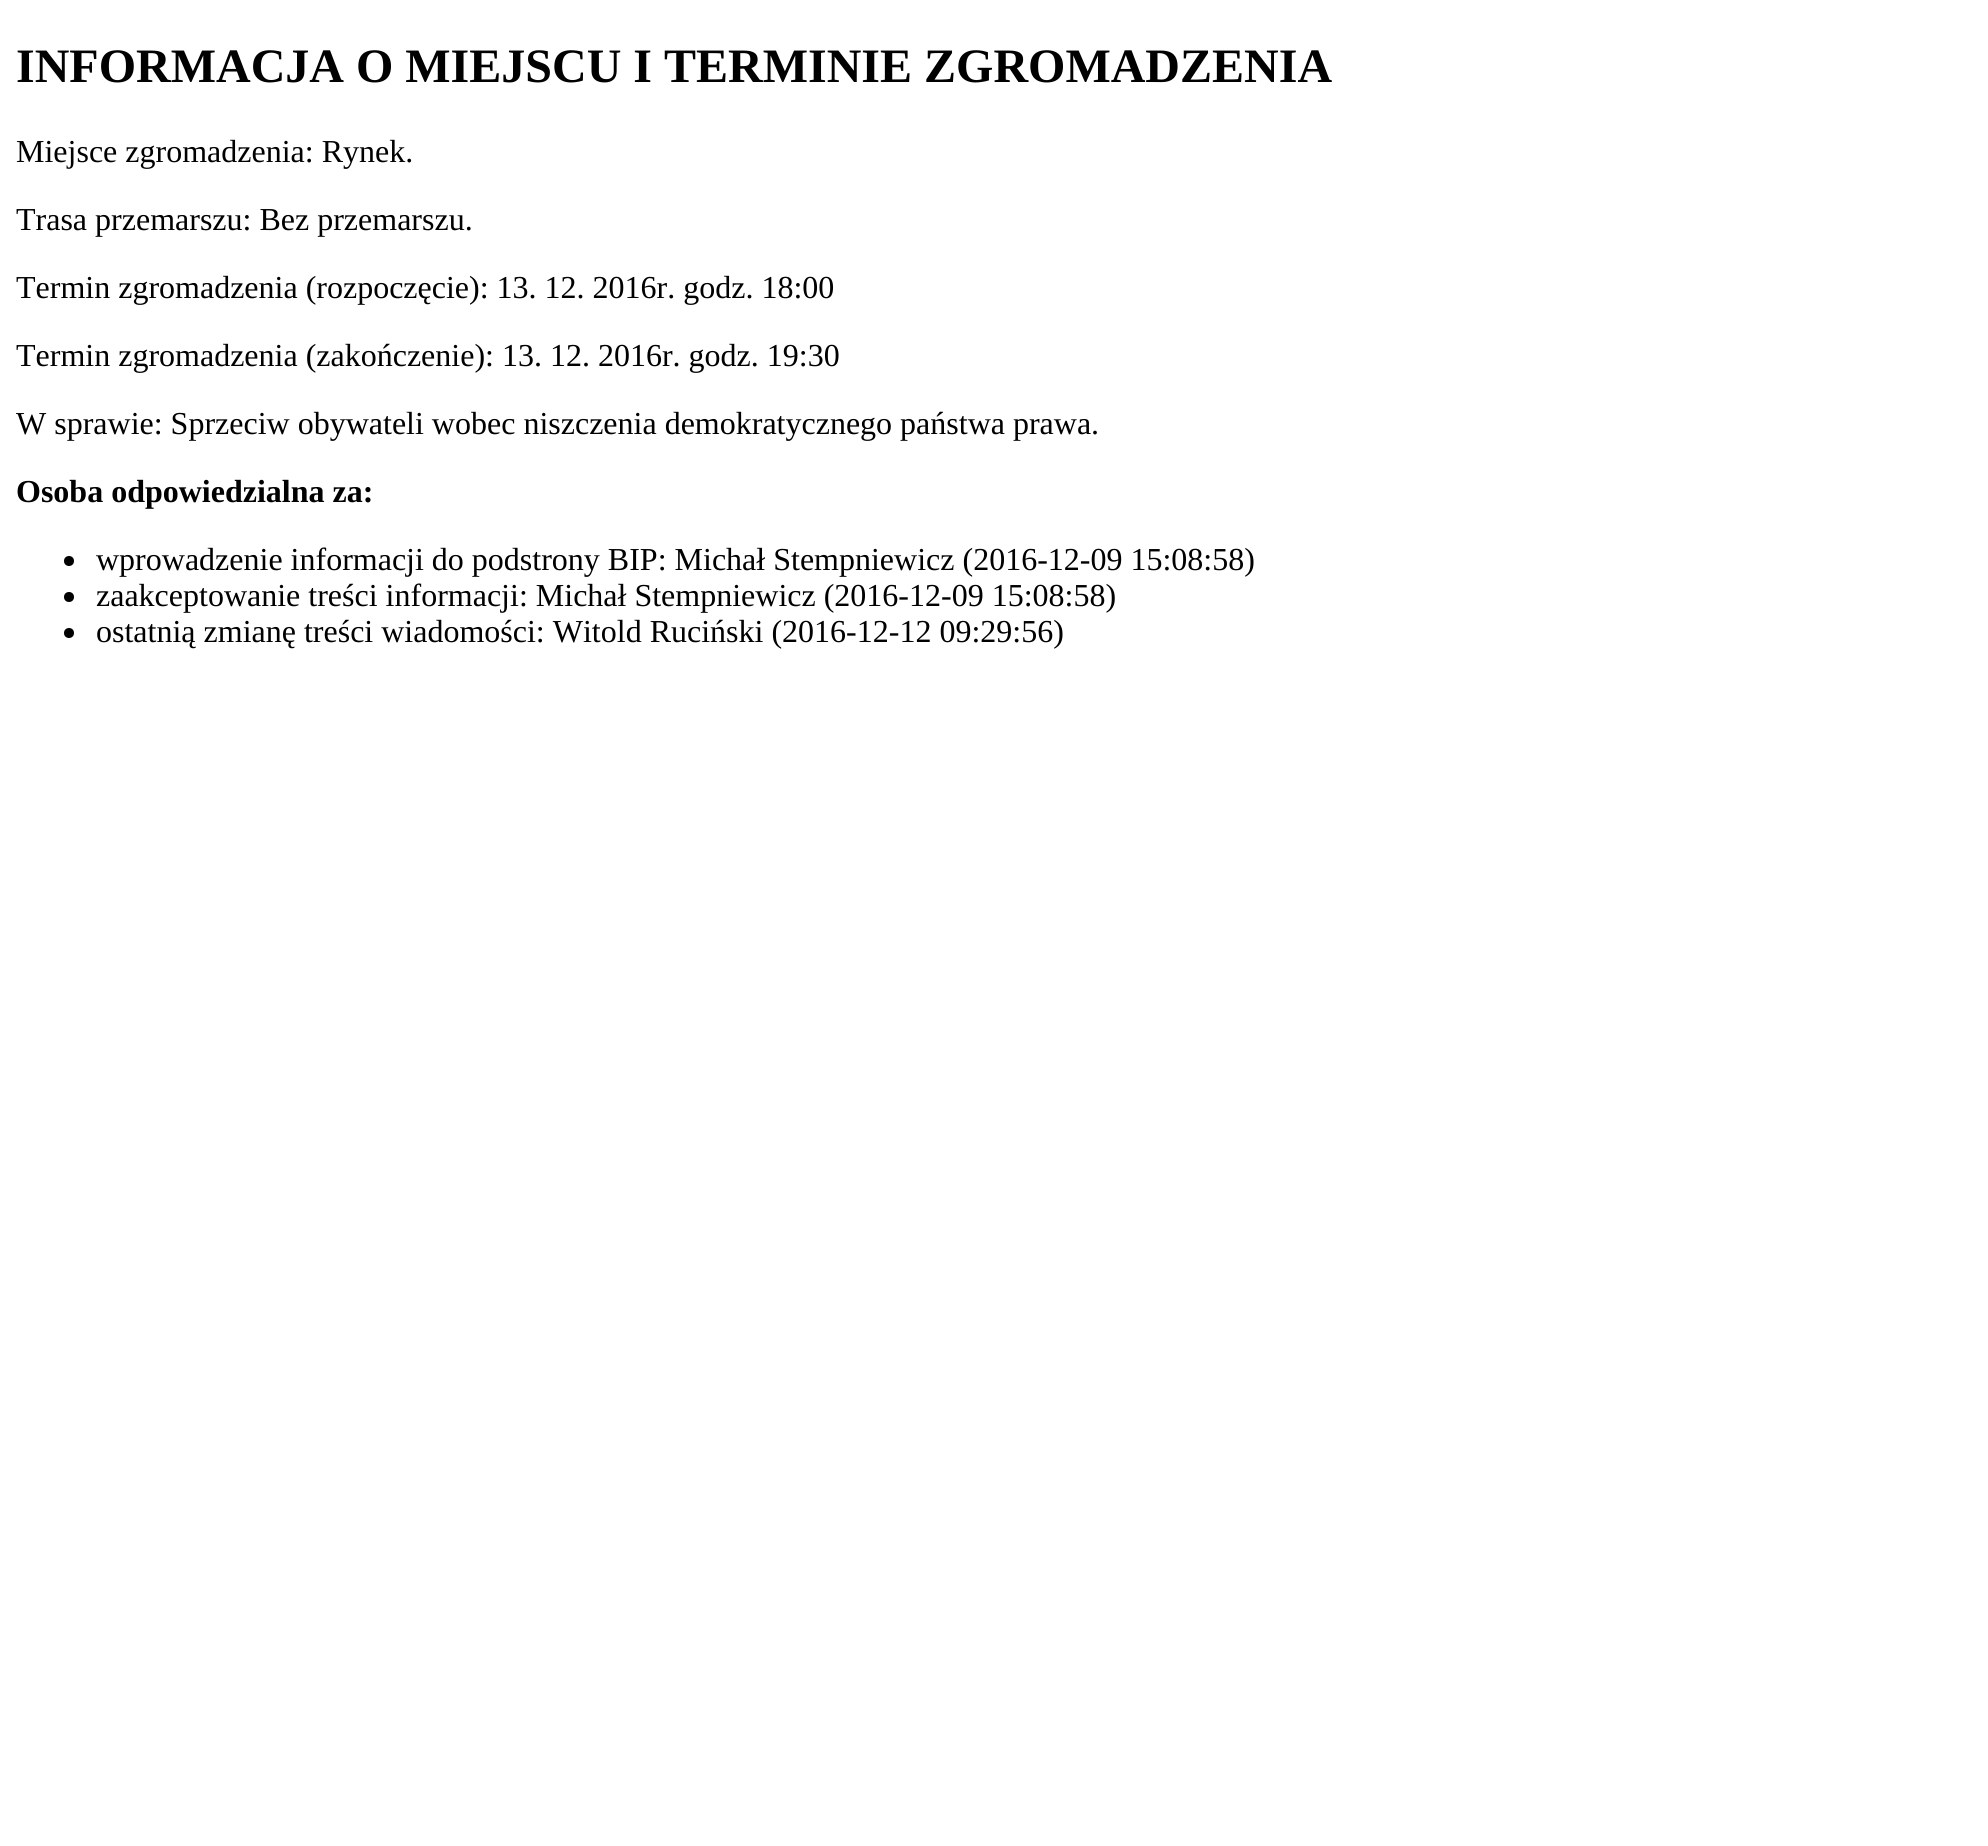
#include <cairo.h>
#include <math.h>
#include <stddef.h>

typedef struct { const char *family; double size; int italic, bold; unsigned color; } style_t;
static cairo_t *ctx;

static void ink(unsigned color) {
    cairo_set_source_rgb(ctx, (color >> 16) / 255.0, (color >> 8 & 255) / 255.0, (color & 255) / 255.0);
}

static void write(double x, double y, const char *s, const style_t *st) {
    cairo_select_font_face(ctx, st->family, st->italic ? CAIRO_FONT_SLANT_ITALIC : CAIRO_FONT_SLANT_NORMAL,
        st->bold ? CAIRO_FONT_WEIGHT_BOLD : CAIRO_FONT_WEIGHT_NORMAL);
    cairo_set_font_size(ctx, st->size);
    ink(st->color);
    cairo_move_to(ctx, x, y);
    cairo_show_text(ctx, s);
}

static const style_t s1 = {"Liberation Serif", 48, 0, 1, 0x000000};
static const style_t s2 = {"Liberation Serif", 32, 0, 0, 0x000000};
static const style_t s3 = {"Liberation Serif", 32, 0, 1, 0x000000};

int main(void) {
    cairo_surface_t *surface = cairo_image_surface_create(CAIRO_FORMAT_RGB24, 1988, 1846);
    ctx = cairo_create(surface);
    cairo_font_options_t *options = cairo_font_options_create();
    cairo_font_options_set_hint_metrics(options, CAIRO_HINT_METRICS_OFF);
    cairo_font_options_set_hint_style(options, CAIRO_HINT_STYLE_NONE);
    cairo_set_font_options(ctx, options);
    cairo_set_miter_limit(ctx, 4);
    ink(0xffffff);
    cairo_paint(ctx);
    write(16, 82, "INFORMACJA O MIEJSCU I TERMINIE ZGROMADZENIA", &s1);
    write(16, 162, "Miejsce zgromadzenia: Rynek.", &s2);
    write(16, 230, "Trasa przemarszu: Bez przemarszu.", &s2);
    write(16, 298, "Termin zgromadzenia (rozpoczęcie): 13. 12. 2016r. godz. 18:00", &s2);
    write(16, 366, "Termin zgromadzenia (zakończenie): 13. 12. 2016r. godz. 19:30", &s2);
    write(16, 434, "W sprawie: Sprzeciw obywateli wobec niszczenia demokratycznego państwa prawa.", &s2);
    write(16, 502, "Osoba odpowiedzialna za:", &s3);
    cairo_new_path(ctx);
    cairo_arc(ctx, 69, 561, 5, 0, 2 * M_PI);
    cairo_fill(ctx);
    write(96, 570, "wprowadzenie informacji do podstrony BIP: Michał Stempniewicz (2016-12-09 15:08:58)", &s2);
    cairo_new_path(ctx);
    cairo_arc(ctx, 69, 597, 5, 0, 2 * M_PI);
    cairo_fill(ctx);
    write(96, 606, "zaakceptowanie treści informacji: Michał Stempniewicz (2016-12-09 15:08:58)", &s2);
    cairo_new_path(ctx);
    cairo_arc(ctx, 69, 633, 5, 0, 2 * M_PI);
    cairo_fill(ctx);
    write(96, 642, "ostatnią zmianę treści wiadomości: Witold Ruciński (2016-12-12 09:29:56)", &s2);
    cairo_surface_write_to_png(surface, "screenshot.png");
    cairo_font_options_destroy(options);
    cairo_destroy(ctx);
    cairo_surface_destroy(surface);
    return 0;
}
